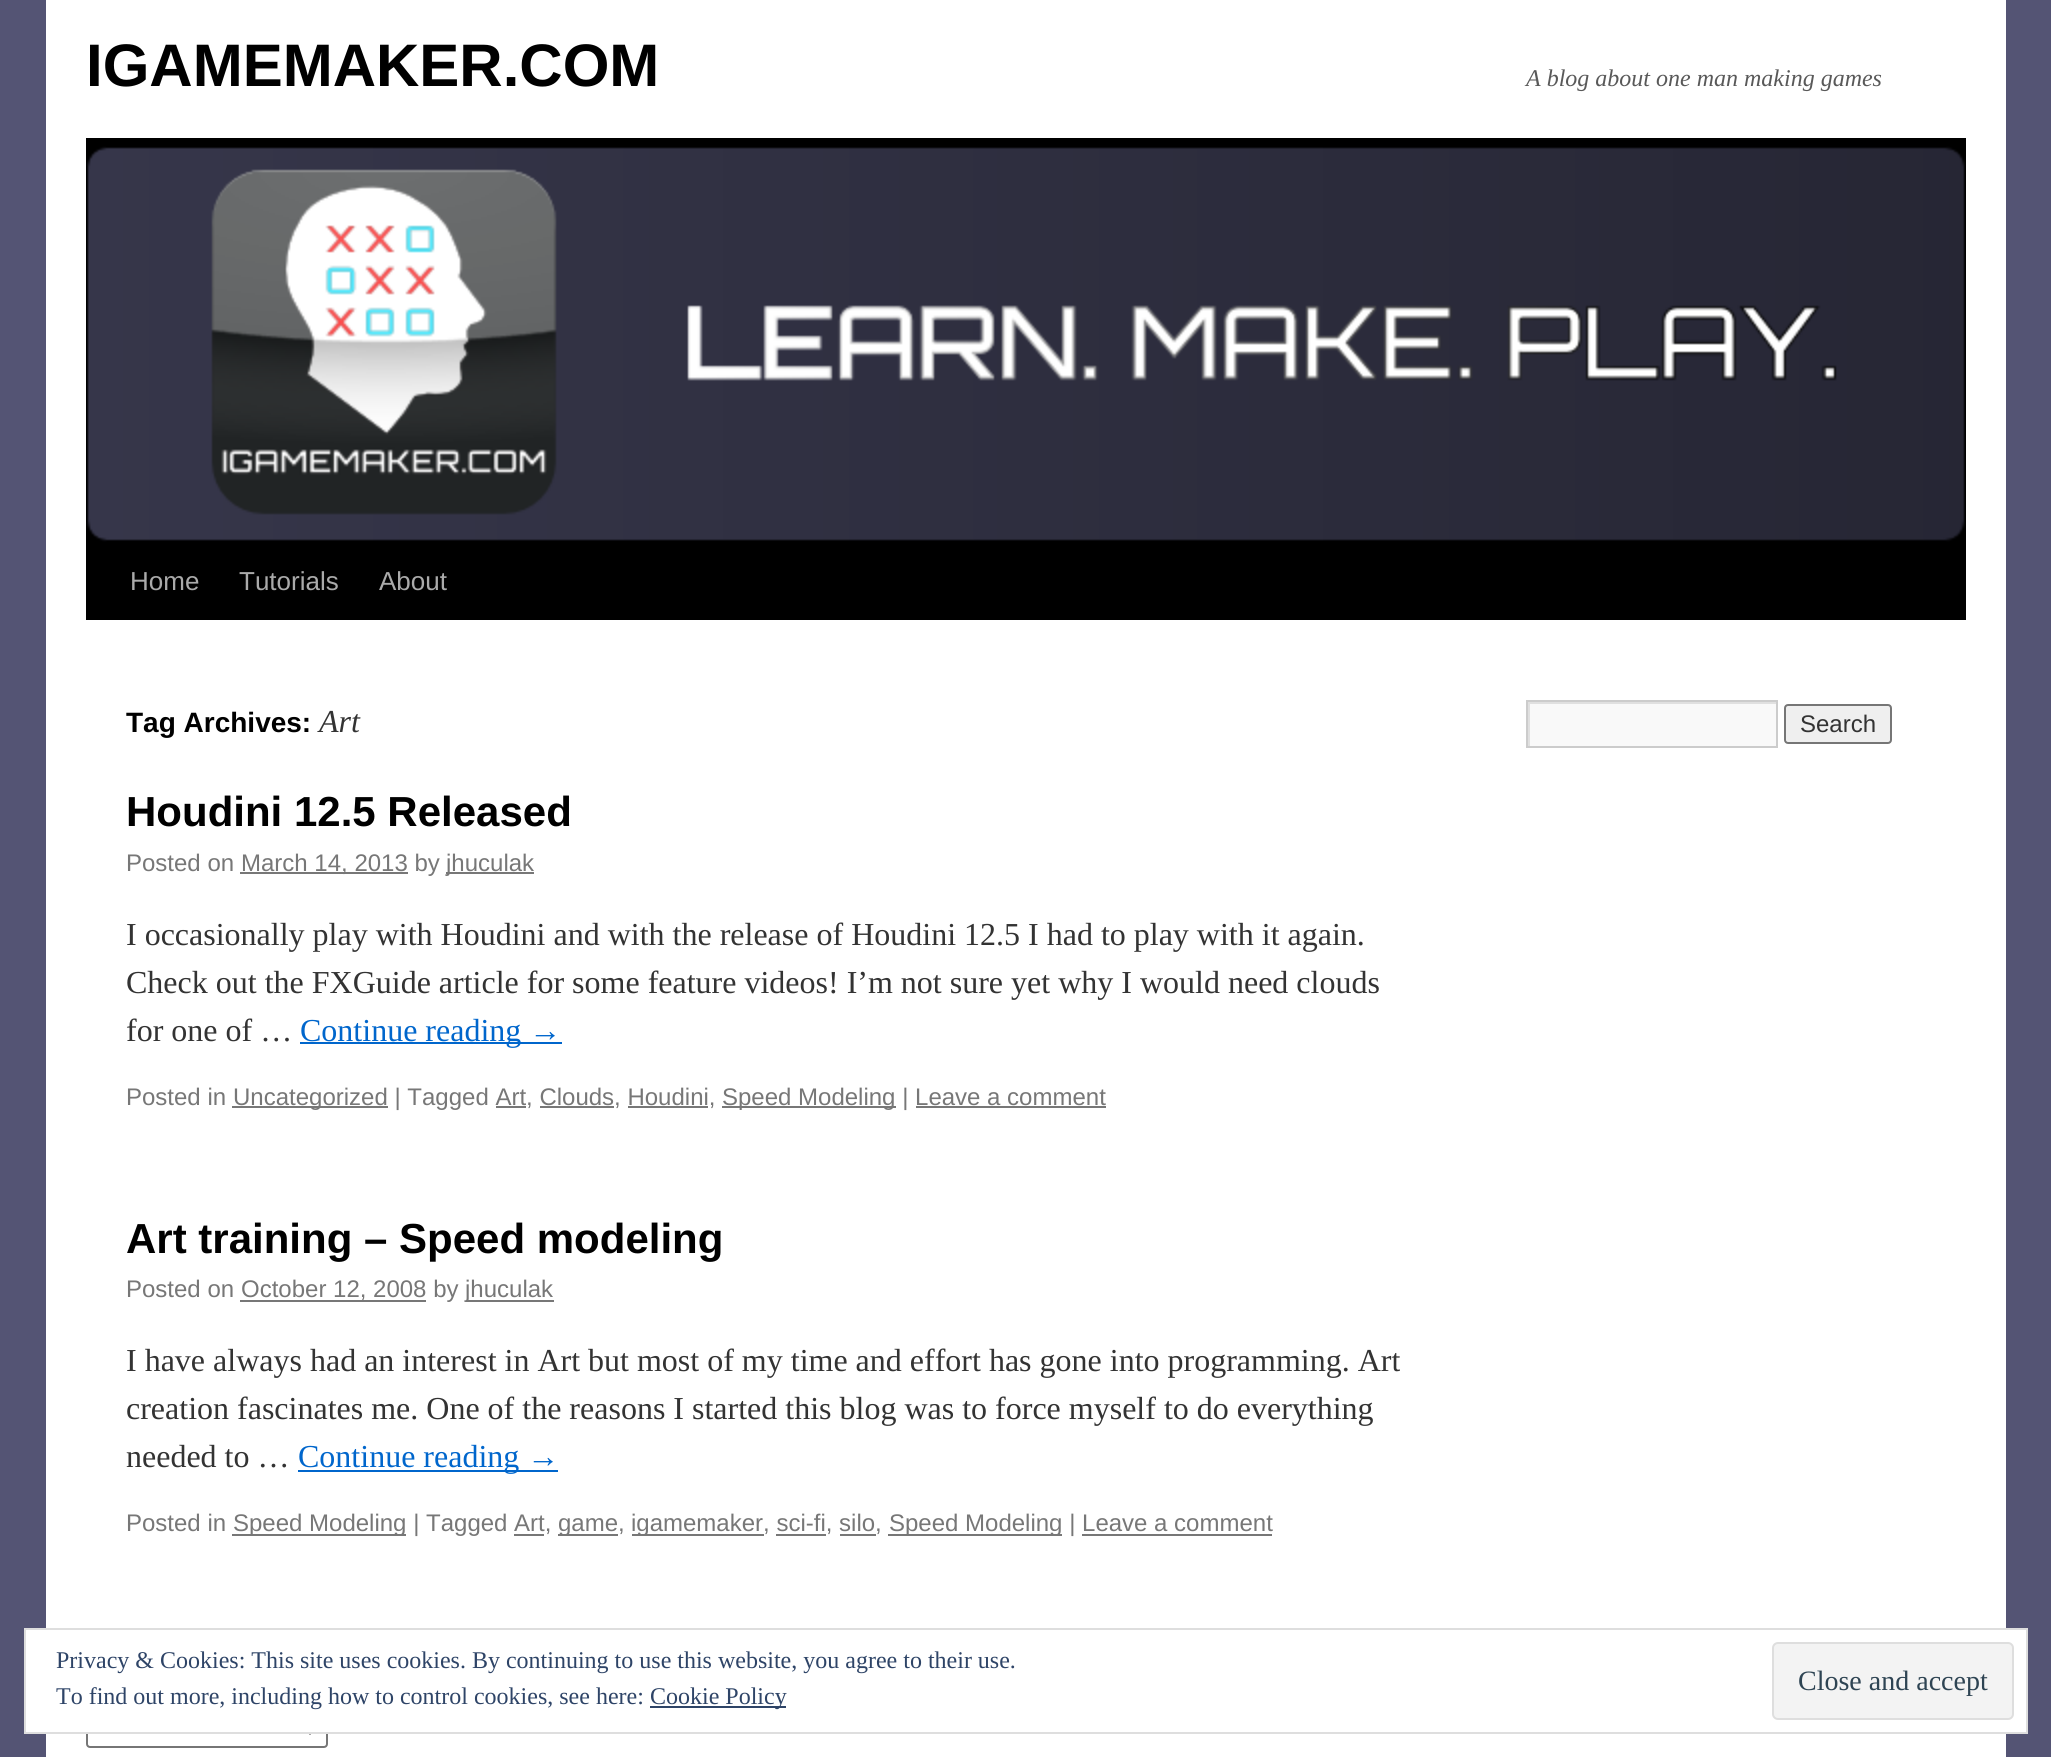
#include <cairo.h>
#include <math.h>
#include <stddef.h>

typedef struct { const char *family; double size; int italic, bold; unsigned color; } style_t;
static cairo_t *ctx;

static void ink(unsigned color) {
    cairo_set_source_rgb(ctx, (color >> 16) / 255.0, (color >> 8 & 255) / 255.0, (color & 255) / 255.0);
}

static void write(double x, double y, const char *s, const style_t *st) {
    cairo_select_font_face(ctx, st->family, st->italic ? CAIRO_FONT_SLANT_ITALIC : CAIRO_FONT_SLANT_NORMAL,
        st->bold ? CAIRO_FONT_WEIGHT_BOLD : CAIRO_FONT_WEIGHT_NORMAL);
    cairo_set_font_size(ctx, st->size);
    ink(st->color);
    cairo_move_to(ctx, x, y);
    cairo_show_text(ctx, s);
}

static void block(double x, double y, double w, double h, unsigned color) {
    ink(color);
    cairo_rectangle(ctx, x, y, w, h);
    cairo_fill(ctx);
}

static void round_path(double x, double y, double w, double h, double r) {
    cairo_new_sub_path(ctx);
    cairo_arc(ctx, x + w - r, y + h - r, r, 0, M_PI / 2);
    cairo_arc(ctx, x + r, y + h - r, r, M_PI / 2, M_PI);
    cairo_arc(ctx, x + r, y + r, r, M_PI, 1.5 * M_PI);
    cairo_arc(ctx, x + w - r, y + r, r, 1.5 * M_PI, 2 * M_PI);
    cairo_close_path(ctx);
}

static void paste(const char *path, double x, double y, double w, double h) {
    cairo_surface_t *image = cairo_image_surface_create_from_png(path);
    cairo_save(ctx);
    cairo_set_source_surface(ctx, image, x, y);
    cairo_rectangle(ctx, x, y, w, h);
    cairo_fill(ctx);
    cairo_restore(ctx);
    cairo_surface_destroy(image);
}

static const style_t s1 = {"Liberation Sans", 60, 0, 1, 0x000000};
static const style_t s2 = {"Liberation Serif", 24, 1, 0, 0x595959};
static const style_t s3 = {"Liberation Sans", 26, 0, 0, 0xaaaaaa};
static const style_t s4 = {"Liberation Sans", 28, 0, 1, 0x000000};
static const style_t s5 = {"Liberation Serif", 32, 1, 0, 0x333333};
static const style_t s6 = {"Liberation Sans", 42, 0, 1, 0x000000};
static const style_t s7 = {"Liberation Sans", 24, 0, 0, 0x777777};
static const style_t s8 = {"Liberation Serif", 32, 0, 0, 0x333333};
static const style_t s9 = {"Liberation Serif", 32, 0, 0, 0x0066cc};
static const style_t s10 = {"Liberation Sans", 24, 0, 0, 0x333333};
static const style_t s11 = {"Liberation Serif", 24, 0, 0, 0x2e4467};
static const style_t s12 = {"Liberation Serif", 28, 0, 0, 0x2e4453};

int main(void) {
    cairo_surface_t *surface = cairo_image_surface_create(CAIRO_FORMAT_RGB24, 2051, 1757);
    ctx = cairo_create(surface);
    cairo_font_options_t *options = cairo_font_options_create();
    cairo_font_options_set_hint_metrics(options, CAIRO_HINT_METRICS_OFF);
    cairo_font_options_set_hint_style(options, CAIRO_HINT_STYLE_NONE);
    cairo_set_font_options(ctx, options);
    cairo_set_miter_limit(ctx, 4);
    ink(0x545474);
    cairo_paint(ctx);
    block(46, 0, 1960, 1757, 0xffffff);
    write(86, 86, "IGAMEMAKER.COM", &s1);
    write(1526, 86, "A blog about one man making games", &s2);
    block(86, 138, 1880, 8, 0x000000);
    block(86, 542, 1880, 78, 0x000000);
    paste("pic1.png", 86, 146, 1880, 396);
    write(130, 590, "Home", &s3);
    write(239, 590, "Tutorials", &s3);
    write(379, 590, "About", &s3);
    write(126, 732, "Tag Archives:", &s4);
    write(319, 732, "Art", &s5);
    write(126, 826, "Houdini 12.5 Released", &s6);
    write(126, 871, "Posted on", &s7);
    block(240, 872, 168, 2, 0x777777);
    write(241, 871, "March 14, 2013 by", &s7);
    block(446, 872, 88, 2, 0x777777);
    write(446, 871, "jhuculak", &s7);
    write(126, 945, "I occasionally play with Houdini and with the release of Houdini 12.5 I had to play with it again.", &s8);
    write(126, 993, "Check out the FXGuide article for some feature videos! I’m not sure yet why I would need clouds", &s8);
    write(126, 1041, "for one of …", &s8);
    block(300, 1042, 262, 2, 0x0066cc);
    write(300, 1041, "Continue reading →", &s9);
    write(126, 1105, "Posted in", &s7);
    block(232, 1106, 156, 2, 0x777777);
    write(233, 1105, "Uncategorized | Tagged Art, Clouds, Houdini,", &s7);
    block(722, 1106, 174, 2, 0x777777);
    write(722, 1105, "Speed Modeling | Leave a comment", &s7);
    block(496, 1106, 30, 2, 0x777777);
    block(540, 1106, 74, 2, 0x777777);
    block(628, 1106, 80, 2, 0x777777);
    block(916, 1106, 190, 2, 0x777777);
    write(126, 1253, "Art training – Speed modeling", &s6);
    write(126, 1297, "Posted on", &s7);
    block(240, 1300, 186, 2, 0x777777);
    write(241, 1297, "October 12, 2008 by", &s7);
    block(466, 1300, 88, 2, 0x777777);
    write(465, 1297, "jhuculak", &s7);
    write(126, 1371, "I have always had an interest in Art but most of my time and effort has gone into programming. Art", &s8);
    write(126, 1419, "creation fascinates me. One of the reasons I started this blog was to force myself to do everything", &s8);
    write(126, 1467, "needed to …", &s8);
    block(298, 1470, 260, 2, 0x0066cc);
    write(298, 1467, "Continue reading →", &s9);
    write(126, 1531, "Posted in", &s7);
    block(232, 1534, 174, 2, 0x777777);
    write(233, 1531, "Speed Modeling | Tagged Art,", &s7);
    block(558, 1534, 60, 2, 0x777777);
    write(558, 1531, "game,", &s7);
    block(514, 1534, 30, 2, 0x777777);
    block(632, 1534, 132, 2, 0x777777);
    write(631, 1531, "igamemaker, sci-fi, silo,", &s7);
    block(776, 1534, 50, 2, 0x777777);
    block(840, 1534, 36, 2, 0x777777);
    block(888, 1534, 174, 2, 0x777777);
    write(889, 1531, "Speed Modeling | Leave a comment", &s7);
    block(1082, 1534, 190, 2, 0x777777);
    block(1530, 704, 246, 42, 0xf9f9f9);
    cairo_save(ctx);
    cairo_rectangle(ctx, 1528, 702, 248, 44);
    cairo_clip(ctx);
    ink(0xe0e0e0);
    cairo_set_fill_rule(ctx, CAIRO_FILL_RULE_EVEN_ODD);
    cairo_new_path(ctx);
    cairo_move_to(ctx, 1330, 504);
    cairo_line_to(ctx, 1974, 504);
    cairo_line_to(ctx, 1974, 944);
    cairo_line_to(ctx, 1330, 944);
    cairo_close_path(ctx);
    cairo_move_to(ctx, 1530, 704);
    cairo_line_to(ctx, 1778, 704);
    cairo_line_to(ctx, 1778, 748);
    cairo_line_to(ctx, 1530, 748);
    cairo_close_path(ctx);
    cairo_fill(ctx);
    cairo_restore(ctx);
    cairo_rectangle(ctx, 1527, 701, 250, 46);
    ink(0xcccccc);
    cairo_stroke(ctx);
    ink(0xefefef);
    round_path(1785, 705, 106, 38, 3);
    cairo_fill_preserve(ctx);
    ink(0x767676);
    cairo_stroke(ctx);
    write(1800, 732, "Search", &s10);
    round_path(87, 1711, 240, 36, 3);
    ink(0x767676);
    cairo_stroke(ctx);
    cairo_new_path(ctx);
    cairo_move_to(ctx, 302, 1724);
    cairo_line_to(ctx, 310, 1732);
    cairo_line_to(ctx, 318, 1724);
    ink(0x000000);
    cairo_set_line_width(ctx, 4);
    cairo_stroke(ctx);
    ink(0xffffff);
    cairo_rectangle(ctx, 25, 1629, 2002, 104);
    cairo_fill_preserve(ctx);
    ink(0xdedede);
    cairo_set_line_width(ctx, 2);
    cairo_stroke(ctx);
    write(56, 1668, "Privacy & Cookies: This site uses cookies. By continuing to use this website, you agree to their use.", &s11);
    ink(0xf3f3f3);
    round_path(1773, 1643, 240, 76, 5);
    cairo_fill_preserve(ctx);
    ink(0xdedede);
    cairo_stroke(ctx);
    write(1798, 1690, "Close and accept", &s12);
    write(56, 1704, "To find out more, including how to control cookies, see here:", &s11);
    block(650, 1706, 136, 2, 0x2e4467);
    write(650, 1704, "Cookie Policy", &s11);
    cairo_surface_write_to_png(surface, "screenshot.png");
    cairo_font_options_destroy(options);
    cairo_destroy(ctx);
    cairo_surface_destroy(surface);
    return 0;
}
